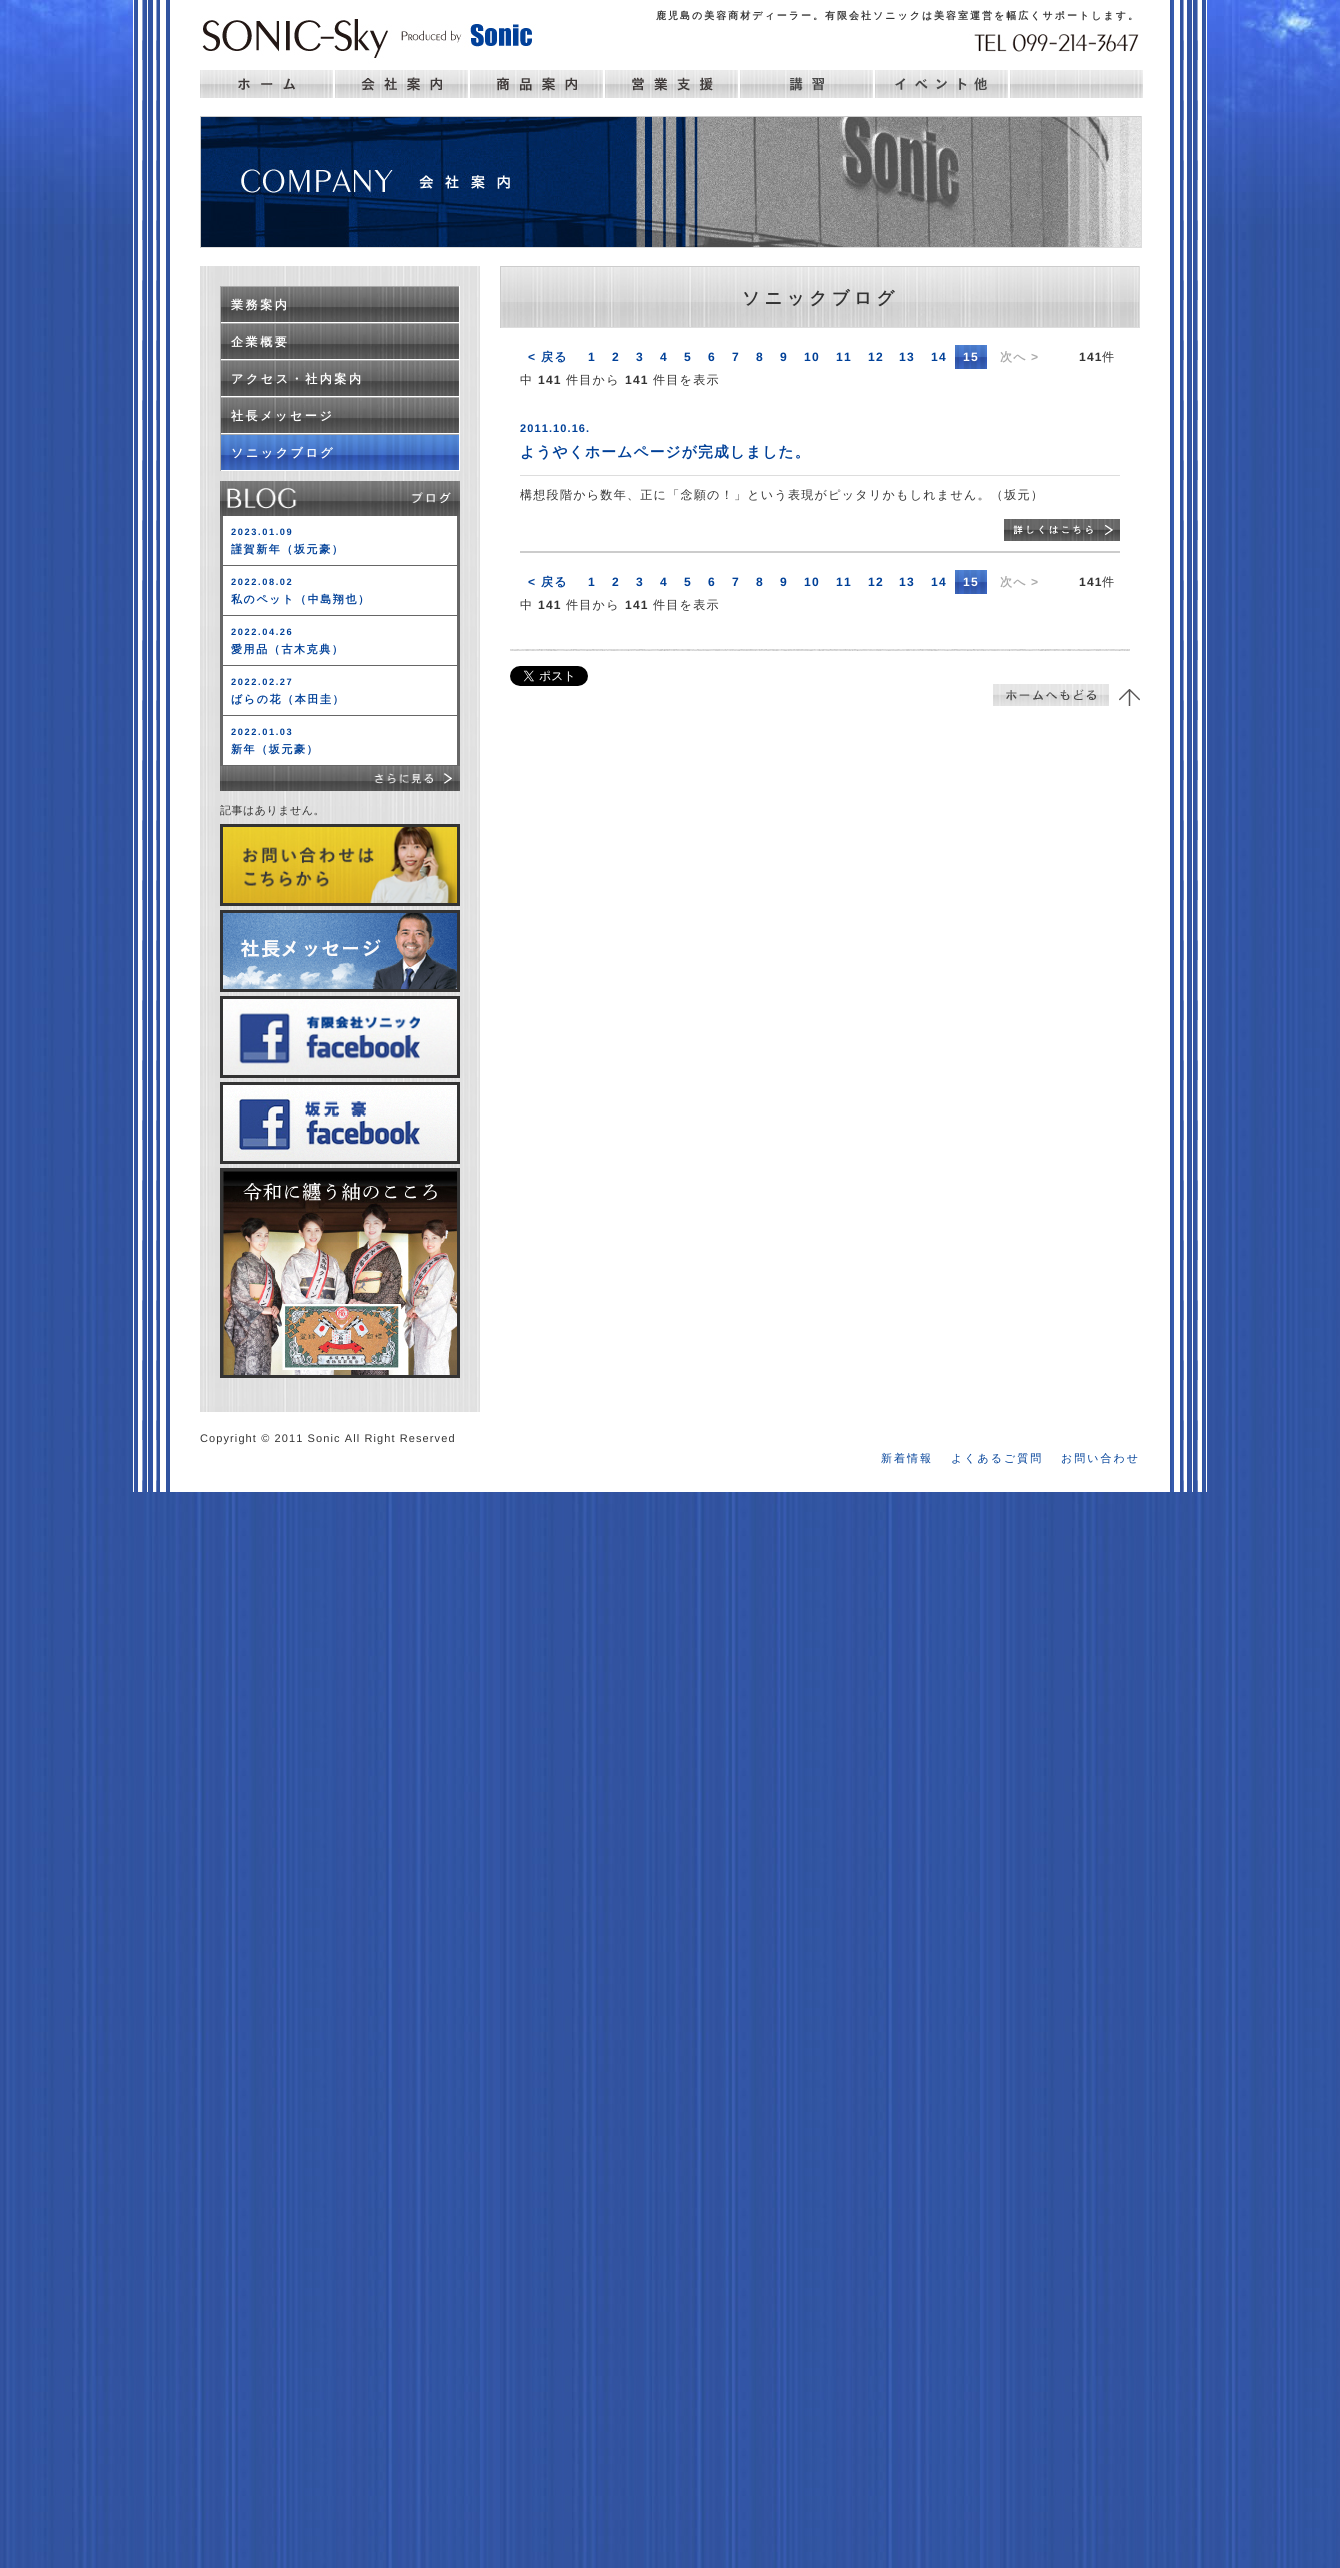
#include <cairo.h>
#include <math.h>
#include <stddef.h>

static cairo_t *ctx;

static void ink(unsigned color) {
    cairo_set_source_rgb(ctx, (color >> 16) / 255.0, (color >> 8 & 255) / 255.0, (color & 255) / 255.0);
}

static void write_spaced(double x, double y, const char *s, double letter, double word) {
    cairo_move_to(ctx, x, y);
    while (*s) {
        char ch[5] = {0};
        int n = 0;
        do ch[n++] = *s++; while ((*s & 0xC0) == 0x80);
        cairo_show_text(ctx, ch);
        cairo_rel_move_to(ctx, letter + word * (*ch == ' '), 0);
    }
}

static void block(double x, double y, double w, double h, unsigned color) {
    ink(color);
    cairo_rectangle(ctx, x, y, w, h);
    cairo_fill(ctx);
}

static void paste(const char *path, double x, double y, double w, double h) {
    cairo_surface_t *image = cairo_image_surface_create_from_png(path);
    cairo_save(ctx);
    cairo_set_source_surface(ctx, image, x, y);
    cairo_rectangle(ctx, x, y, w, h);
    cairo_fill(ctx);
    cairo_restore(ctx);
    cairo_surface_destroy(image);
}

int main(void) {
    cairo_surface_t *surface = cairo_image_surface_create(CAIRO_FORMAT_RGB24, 1340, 2568);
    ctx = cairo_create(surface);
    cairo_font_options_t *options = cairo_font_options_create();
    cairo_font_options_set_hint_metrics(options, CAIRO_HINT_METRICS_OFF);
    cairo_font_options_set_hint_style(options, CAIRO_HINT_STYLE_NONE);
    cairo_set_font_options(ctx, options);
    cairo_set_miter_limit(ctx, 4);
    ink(0xffffff);
    cairo_paint(ctx);
    paste("pic1.png", 0, 240, 1340, 2328);
    paste("pic2.png", 0, 0, 1340, 240);
    paste("pic3.png", 133, 0, 1074, 1492);
    paste("pic4.png", 200, 0, 939, 116);
    cairo_select_font_face(ctx, "WenQuanYi Zen Hei", CAIRO_FONT_SLANT_NORMAL, CAIRO_FONT_WEIGHT_BOLD);
    cairo_set_font_size(ctx, 10);
    ink(0x333333);
    write_spaced(656, 19, "鹿児島の美容商材ディーラー。有限会社ソニックは美容室運営を幅広くサポートします。", 2, 0);
    paste("pic5.png", 200, 70, 133, 28);
    paste("pic6.png", 335, 70, 133, 28);
    paste("pic7.png", 470, 70, 133, 28);
    paste("pic8.png", 605, 70, 133, 28);
    paste("pic9.png", 740, 70, 133, 28);
    paste("pic10.png", 875, 70, 133, 28);
    paste("pic11.png", 1010, 70, 133, 28);
    block(200, 248, 280, 18, 0xffffff);
    block(200, 116, 942, 1, 0xcccccc);
    block(1141, 116, 1, 132, 0xdddddd);
    block(200, 247, 942, 1, 0xdddddd);
    block(200, 116, 1, 132, 0xcccccc);
    paste("pic12.png", 201, 117, 940, 130);
    block(221, 322, 238, 1, 0xffffff);
    paste("pic13.png", 221, 287, 238, 35);
    block(220, 286, 240, 1, 0xaaaaaa);
    block(459, 286, 1, 37, 0xffffff);
    block(220, 286, 1, 37, 0xaaaaaa);
    cairo_set_font_size(ctx, 12.1);
    ink(0xffffff);
    write_spaced(231, 309, "業務案内", 2.5, 0);
    block(221, 359, 238, 1, 0xffffff);
    paste("pic13.png", 221, 324, 238, 35);
    block(220, 323, 240, 1, 0xaaaaaa);
    block(459, 323, 1, 37, 0xffffff);
    block(220, 323, 1, 37, 0xaaaaaa);
    ink(0xffffff);
    write_spaced(231, 346, "企業概要", 2.5, 0);
    block(221, 396, 238, 1, 0xffffff);
    paste("pic13.png", 221, 361, 238, 35);
    block(220, 360, 240, 1, 0xaaaaaa);
    block(459, 360, 1, 37, 0xffffff);
    block(220, 360, 1, 37, 0xaaaaaa);
    ink(0xffffff);
    write_spaced(231, 383, "アクセス・社内案内", 2.5, 0);
    block(221, 433, 238, 1, 0xffffff);
    paste("pic13.png", 221, 398, 238, 35);
    block(220, 397, 240, 1, 0xaaaaaa);
    block(459, 397, 1, 37, 0xffffff);
    block(220, 397, 1, 37, 0xaaaaaa);
    ink(0xffffff);
    write_spaced(231, 420, "社長メッセージ", 2.5, 0);
    paste("pic14.png", 221, 435, 238, 35);
    block(220, 434, 240, 1, 0xaaaaaa);
    block(459, 434, 1, 37, 0xffffff);
    block(220, 470, 240, 1, 0xffffff);
    block(220, 434, 1, 37, 0xaaaaaa);
    ink(0xffffff);
    write_spaced(231, 457, "ソニックブログ", 2.5, 0);
    paste("pic15.png", 220, 481, 240, 35);
    block(223, 516, 234, 49, 0xffffff);
    block(457, 516, 3, 250, 0x666666);
    block(220, 565, 240, 1, 0x666666);
    block(220, 516, 3, 50, 0x666666);
    cairo_select_font_face(ctx, "Liberation Sans", CAIRO_FONT_SLANT_NORMAL, CAIRO_FONT_WEIGHT_BOLD);
    cairo_set_font_size(ctx, 9.25);
    ink(0x004098);
    write_spaced(231, 535, "2023.01.09", 1.6, 0);
    cairo_select_font_face(ctx, "WenQuanYi Zen Hei", CAIRO_FONT_SLANT_NORMAL, CAIRO_FONT_WEIGHT_BOLD);
    cairo_set_font_size(ctx, 11);
    write_spaced(231, 553, "謹賀新年（坂元豪）", 1.6, 0);
    block(223, 566, 234, 49, 0xffffff);
    block(220, 615, 240, 1, 0x666666);
    block(220, 566, 3, 50, 0x666666);
    cairo_select_font_face(ctx, "Liberation Sans", CAIRO_FONT_SLANT_NORMAL, CAIRO_FONT_WEIGHT_BOLD);
    cairo_set_font_size(ctx, 9.25);
    ink(0x004098);
    write_spaced(231, 585, "2022.08.02", 1.6, 0);
    cairo_select_font_face(ctx, "WenQuanYi Zen Hei", CAIRO_FONT_SLANT_NORMAL, CAIRO_FONT_WEIGHT_BOLD);
    cairo_set_font_size(ctx, 11);
    write_spaced(231, 603, "私のペット（中島翔也）", 1.6, 0);
    block(223, 616, 234, 49, 0xffffff);
    block(220, 665, 240, 1, 0x666666);
    block(220, 616, 3, 50, 0x666666);
    cairo_select_font_face(ctx, "Liberation Sans", CAIRO_FONT_SLANT_NORMAL, CAIRO_FONT_WEIGHT_BOLD);
    cairo_set_font_size(ctx, 9.25);
    ink(0x004098);
    write_spaced(231, 635, "2022.04.26", 1.6, 0);
    cairo_select_font_face(ctx, "WenQuanYi Zen Hei", CAIRO_FONT_SLANT_NORMAL, CAIRO_FONT_WEIGHT_BOLD);
    cairo_set_font_size(ctx, 11);
    write_spaced(231, 653, "愛用品（古木克典）", 1.6, 0);
    block(223, 666, 234, 49, 0xffffff);
    block(220, 715, 240, 1, 0x666666);
    block(220, 666, 3, 50, 0x666666);
    cairo_select_font_face(ctx, "Liberation Sans", CAIRO_FONT_SLANT_NORMAL, CAIRO_FONT_WEIGHT_BOLD);
    cairo_set_font_size(ctx, 9.25);
    ink(0x004098);
    write_spaced(231, 685, "2022.02.27", 1.6, 0);
    cairo_select_font_face(ctx, "WenQuanYi Zen Hei", CAIRO_FONT_SLANT_NORMAL, CAIRO_FONT_WEIGHT_BOLD);
    cairo_set_font_size(ctx, 11);
    write_spaced(231, 703, "ばらの花（本田圭）", 1.6, 0);
    block(223, 716, 234, 49, 0xffffff);
    block(220, 765, 240, 1, 0x666666);
    block(220, 716, 3, 50, 0x666666);
    cairo_select_font_face(ctx, "Liberation Sans", CAIRO_FONT_SLANT_NORMAL, CAIRO_FONT_WEIGHT_BOLD);
    cairo_set_font_size(ctx, 9.25);
    ink(0x004098);
    write_spaced(231, 735, "2022.01.03", 1.6, 0);
    cairo_select_font_face(ctx, "WenQuanYi Zen Hei", CAIRO_FONT_SLANT_NORMAL, CAIRO_FONT_WEIGHT_BOLD);
    cairo_set_font_size(ctx, 11);
    write_spaced(231, 753, "新年（坂元豪）", 1.6, 0);
    paste("pic16.png", 220, 766, 240, 25);
    cairo_select_font_face(ctx, "WenQuanYi Zen Hei Medium", CAIRO_FONT_SLANT_NORMAL, CAIRO_FONT_WEIGHT_NORMAL);
    ink(0x333333);
    write_spaced(220, 814, "記事はありません。", 0.5, 0);
    cairo_rectangle(ctx, 221.5, 825.5, 237, 79);
    cairo_set_line_width(ctx, 3);
    cairo_stroke(ctx);
    paste("pic17.png", 223, 827, 234, 76);
    cairo_rectangle(ctx, 221.5, 911.5, 237, 79);
    cairo_stroke(ctx);
    paste("pic18.png", 223, 913, 234, 76);
    cairo_rectangle(ctx, 221.5, 997.5, 237, 79);
    cairo_stroke(ctx);
    paste("pic19.png", 223, 999, 234, 76);
    cairo_rectangle(ctx, 221.5, 1083.5, 237, 79);
    cairo_stroke(ctx);
    paste("pic20.png", 223, 1085, 234, 76);
    cairo_rectangle(ctx, 221.5, 1169.5, 237, 207);
    cairo_stroke(ctx);
    paste("pic21.png", 223, 1171, 234, 204);
    paste("pic22.png", 501, 267, 638, 60);
    block(500, 266, 640, 1, 0xcccccc);
    block(1139, 266, 1, 62, 0xdddddd);
    block(500, 327, 640, 1, 0xdddddd);
    block(500, 266, 1, 62, 0xcccccc);
    cairo_select_font_face(ctx, "WenQuanYi Zen Hei", CAIRO_FONT_SLANT_NORMAL, CAIRO_FONT_WEIGHT_BOLD);
    cairo_set_font_size(ctx, 17.5);
    ink(0x333333);
    write_spaced(742, 304, "ソニックブログ", 4.5, 0);
    cairo_set_font_size(ctx, 12.1);
    ink(0x004098);
    write_spaced(541, 361, "戻る", 1.2, 0);
    cairo_select_font_face(ctx, "Liberation Sans", CAIRO_FONT_SLANT_NORMAL, CAIRO_FONT_WEIGHT_BOLD);
    write_spaced(588, 361, "1", 1.2, 0);
    write_spaced(612, 361, "2", 1.2, 0);
    write_spaced(636, 361, "3", 1.2, 0);
    write_spaced(660, 361, "4", 1.2, 0);
    write_spaced(684, 361, "5", 1.2, 0);
    write_spaced(708, 361, "6", 1.2, 0);
    write_spaced(732, 361, "7", 1.2, 0);
    write_spaced(756, 361, "8", 1.2, 0);
    write_spaced(780, 361, "9", 1.2, 0);
    write_spaced(804, 361, "10", 1.2, 0);
    write_spaced(836, 361, "11", 1.2, 0);
    write_spaced(868, 361, "12", 1.2, 0);
    write_spaced(899, 361, "13", 1.2, 0);
    write_spaced(931, 361, "14", 1.2, 0);
    paste("pic23.png", 955, 345, 32, 24);
    cairo_select_font_face(ctx, "WenQuanYi Zen Hei", CAIRO_FONT_SLANT_NORMAL, CAIRO_FONT_WEIGHT_BOLD);
    ink(0xaaaaaa);
    write_spaced(1000, 361, "次へ", 1.2, 0);
    cairo_select_font_face(ctx, "WenQuanYi Zen Hei Medium", CAIRO_FONT_SLANT_NORMAL, CAIRO_FONT_WEIGHT_NORMAL);
    ink(0x333333);
    write_spaced(1102, 361, "件", 1.2, 0);
    cairo_select_font_face(ctx, "Liberation Sans", CAIRO_FONT_SLANT_NORMAL, CAIRO_FONT_WEIGHT_BOLD);
    ink(0x004098);
    write_spaced(528, 361, "<", 1.2, 0);
    ink(0xffffff);
    write_spaced(963, 361, "15", 1.2, 0);
    ink(0xaaaaaa);
    write_spaced(1031, 361, ">", 1.2, 0);
    ink(0x333333);
    write_spaced(1079, 361, "141", 1.2, 0);
    cairo_select_font_face(ctx, "WenQuanYi Zen Hei Medium", CAIRO_FONT_SLANT_NORMAL, CAIRO_FONT_WEIGHT_NORMAL);
    write_spaced(520, 384, "中", 1.2, 0);
    cairo_select_font_face(ctx, "Liberation Sans", CAIRO_FONT_SLANT_NORMAL, CAIRO_FONT_WEIGHT_BOLD);
    write_spaced(538, 384, "141", 1.2, 0);
    cairo_select_font_face(ctx, "WenQuanYi Zen Hei Medium", CAIRO_FONT_SLANT_NORMAL, CAIRO_FONT_WEIGHT_NORMAL);
    write_spaced(566, 384, "件目から", 1.2, 0);
    cairo_select_font_face(ctx, "Liberation Sans", CAIRO_FONT_SLANT_NORMAL, CAIRO_FONT_WEIGHT_BOLD);
    write_spaced(625, 384, "141", 1.2, 0);
    cairo_select_font_face(ctx, "WenQuanYi Zen Hei Medium", CAIRO_FONT_SLANT_NORMAL, CAIRO_FONT_WEIGHT_NORMAL);
    write_spaced(653, 384, "件目を表示", 1.2, 0);
    block(520, 551, 600, 2, 0xcccccc);
    block(520, 475, 600, 1, 0xdddddd);
    cairo_select_font_face(ctx, "Liberation Sans", CAIRO_FONT_SLANT_NORMAL, CAIRO_FONT_WEIGHT_BOLD);
    cairo_set_font_size(ctx, 11);
    ink(0x004098);
    write_spaced(520, 432, "2011.10.16.", 1.1, 0);
    cairo_select_font_face(ctx, "WenQuanYi Zen Hei", CAIRO_FONT_SLANT_NORMAL, CAIRO_FONT_WEIGHT_BOLD);
    cairo_set_font_size(ctx, 14.8);
    write_spaced(520, 457, "ようやくホームページが完成しました。", 1.1, 0);
    cairo_select_font_face(ctx, "WenQuanYi Zen Hei Medium", CAIRO_FONT_SLANT_NORMAL, CAIRO_FONT_WEIGHT_NORMAL);
    cairo_set_font_size(ctx, 12.1);
    ink(0x333333);
    write_spaced(520, 499, "構想段階から数年、正に「念願の！」という表現がピッタリかもしれません。（坂元）", 1.2, 0);
    paste("pic24.png", 1004, 519, 116, 22);
    cairo_select_font_face(ctx, "WenQuanYi Zen Hei", CAIRO_FONT_SLANT_NORMAL, CAIRO_FONT_WEIGHT_BOLD);
    ink(0x004098);
    write_spaced(541, 586, "戻る", 1.2, 0);
    cairo_select_font_face(ctx, "Liberation Sans", CAIRO_FONT_SLANT_NORMAL, CAIRO_FONT_WEIGHT_BOLD);
    write_spaced(588, 586, "1", 1.2, 0);
    write_spaced(612, 586, "2", 1.2, 0);
    write_spaced(636, 586, "3", 1.2, 0);
    write_spaced(660, 586, "4", 1.2, 0);
    write_spaced(684, 586, "5", 1.2, 0);
    write_spaced(708, 586, "6", 1.2, 0);
    write_spaced(732, 586, "7", 1.2, 0);
    write_spaced(756, 586, "8", 1.2, 0);
    write_spaced(780, 586, "9", 1.2, 0);
    write_spaced(804, 586, "10", 1.2, 0);
    write_spaced(836, 586, "11", 1.2, 0);
    write_spaced(868, 586, "12", 1.2, 0);
    write_spaced(899, 586, "13", 1.2, 0);
    write_spaced(931, 586, "14", 1.2, 0);
    paste("pic23.png", 955, 570, 32, 24);
    cairo_select_font_face(ctx, "WenQuanYi Zen Hei", CAIRO_FONT_SLANT_NORMAL, CAIRO_FONT_WEIGHT_BOLD);
    ink(0xaaaaaa);
    write_spaced(1000, 586, "次へ", 1.2, 0);
    cairo_select_font_face(ctx, "WenQuanYi Zen Hei Medium", CAIRO_FONT_SLANT_NORMAL, CAIRO_FONT_WEIGHT_NORMAL);
    ink(0x333333);
    write_spaced(1102, 586, "件", 1.2, 0);
    cairo_select_font_face(ctx, "Liberation Sans", CAIRO_FONT_SLANT_NORMAL, CAIRO_FONT_WEIGHT_BOLD);
    ink(0x004098);
    write_spaced(528, 586, "<", 1.2, 0);
    ink(0xffffff);
    write_spaced(963, 586, "15", 1.2, 0);
    ink(0xaaaaaa);
    write_spaced(1031, 586, ">", 1.2, 0);
    ink(0x333333);
    write_spaced(1079, 586, "141", 1.2, 0);
    cairo_select_font_face(ctx, "WenQuanYi Zen Hei Medium", CAIRO_FONT_SLANT_NORMAL, CAIRO_FONT_WEIGHT_NORMAL);
    write_spaced(520, 609, "中", 1.2, 0);
    cairo_select_font_face(ctx, "Liberation Sans", CAIRO_FONT_SLANT_NORMAL, CAIRO_FONT_WEIGHT_BOLD);
    write_spaced(538, 609, "141", 1.2, 0);
    cairo_select_font_face(ctx, "WenQuanYi Zen Hei Medium", CAIRO_FONT_SLANT_NORMAL, CAIRO_FONT_WEIGHT_NORMAL);
    write_spaced(566, 609, "件目から", 1.2, 0);
    cairo_select_font_face(ctx, "Liberation Sans", CAIRO_FONT_SLANT_NORMAL, CAIRO_FONT_WEIGHT_BOLD);
    write_spaced(625, 609, "141", 1.2, 0);
    cairo_select_font_face(ctx, "WenQuanYi Zen Hei Medium", CAIRO_FONT_SLANT_NORMAL, CAIRO_FONT_WEIGHT_NORMAL);
    write_spaced(653, 609, "件目を表示", 1.2, 0);
    paste("pic25.png", 510, 649, 620, 2);
    paste("pic26.png", 510, 666, 78, 20);
    paste("pic27.png", 993, 684, 116, 22);
    paste("pic28.png", 1119, 689, 21, 17);
    block(200, 1412, 280, 80, 0xffffff);
    cairo_select_font_face(ctx, "Liberation Sans", CAIRO_FONT_SLANT_NORMAL, CAIRO_FONT_WEIGHT_NORMAL);
    cairo_set_font_size(ctx, 11);
    ink(0x333333);
    write_spaced(200, 1442, "Copyright © 2011 Sonic All Right Reserved", 1.1, 0);
    cairo_select_font_face(ctx, "WenQuanYi Zen Hei Medium", CAIRO_FONT_SLANT_NORMAL, CAIRO_FONT_WEIGHT_NORMAL);
    ink(0x004098);
    write_spaced(881, 1462, "新着情報", 2, 0);
    write_spaced(951, 1462, "よくあるご質問", 2, 0);
    write_spaced(1061, 1462, "お問い合わせ", 2, 0);
    cairo_surface_write_to_png(surface, "screenshot.png");
    cairo_font_options_destroy(options);
    cairo_destroy(ctx);
    cairo_surface_destroy(surface);
    return 0;
}
